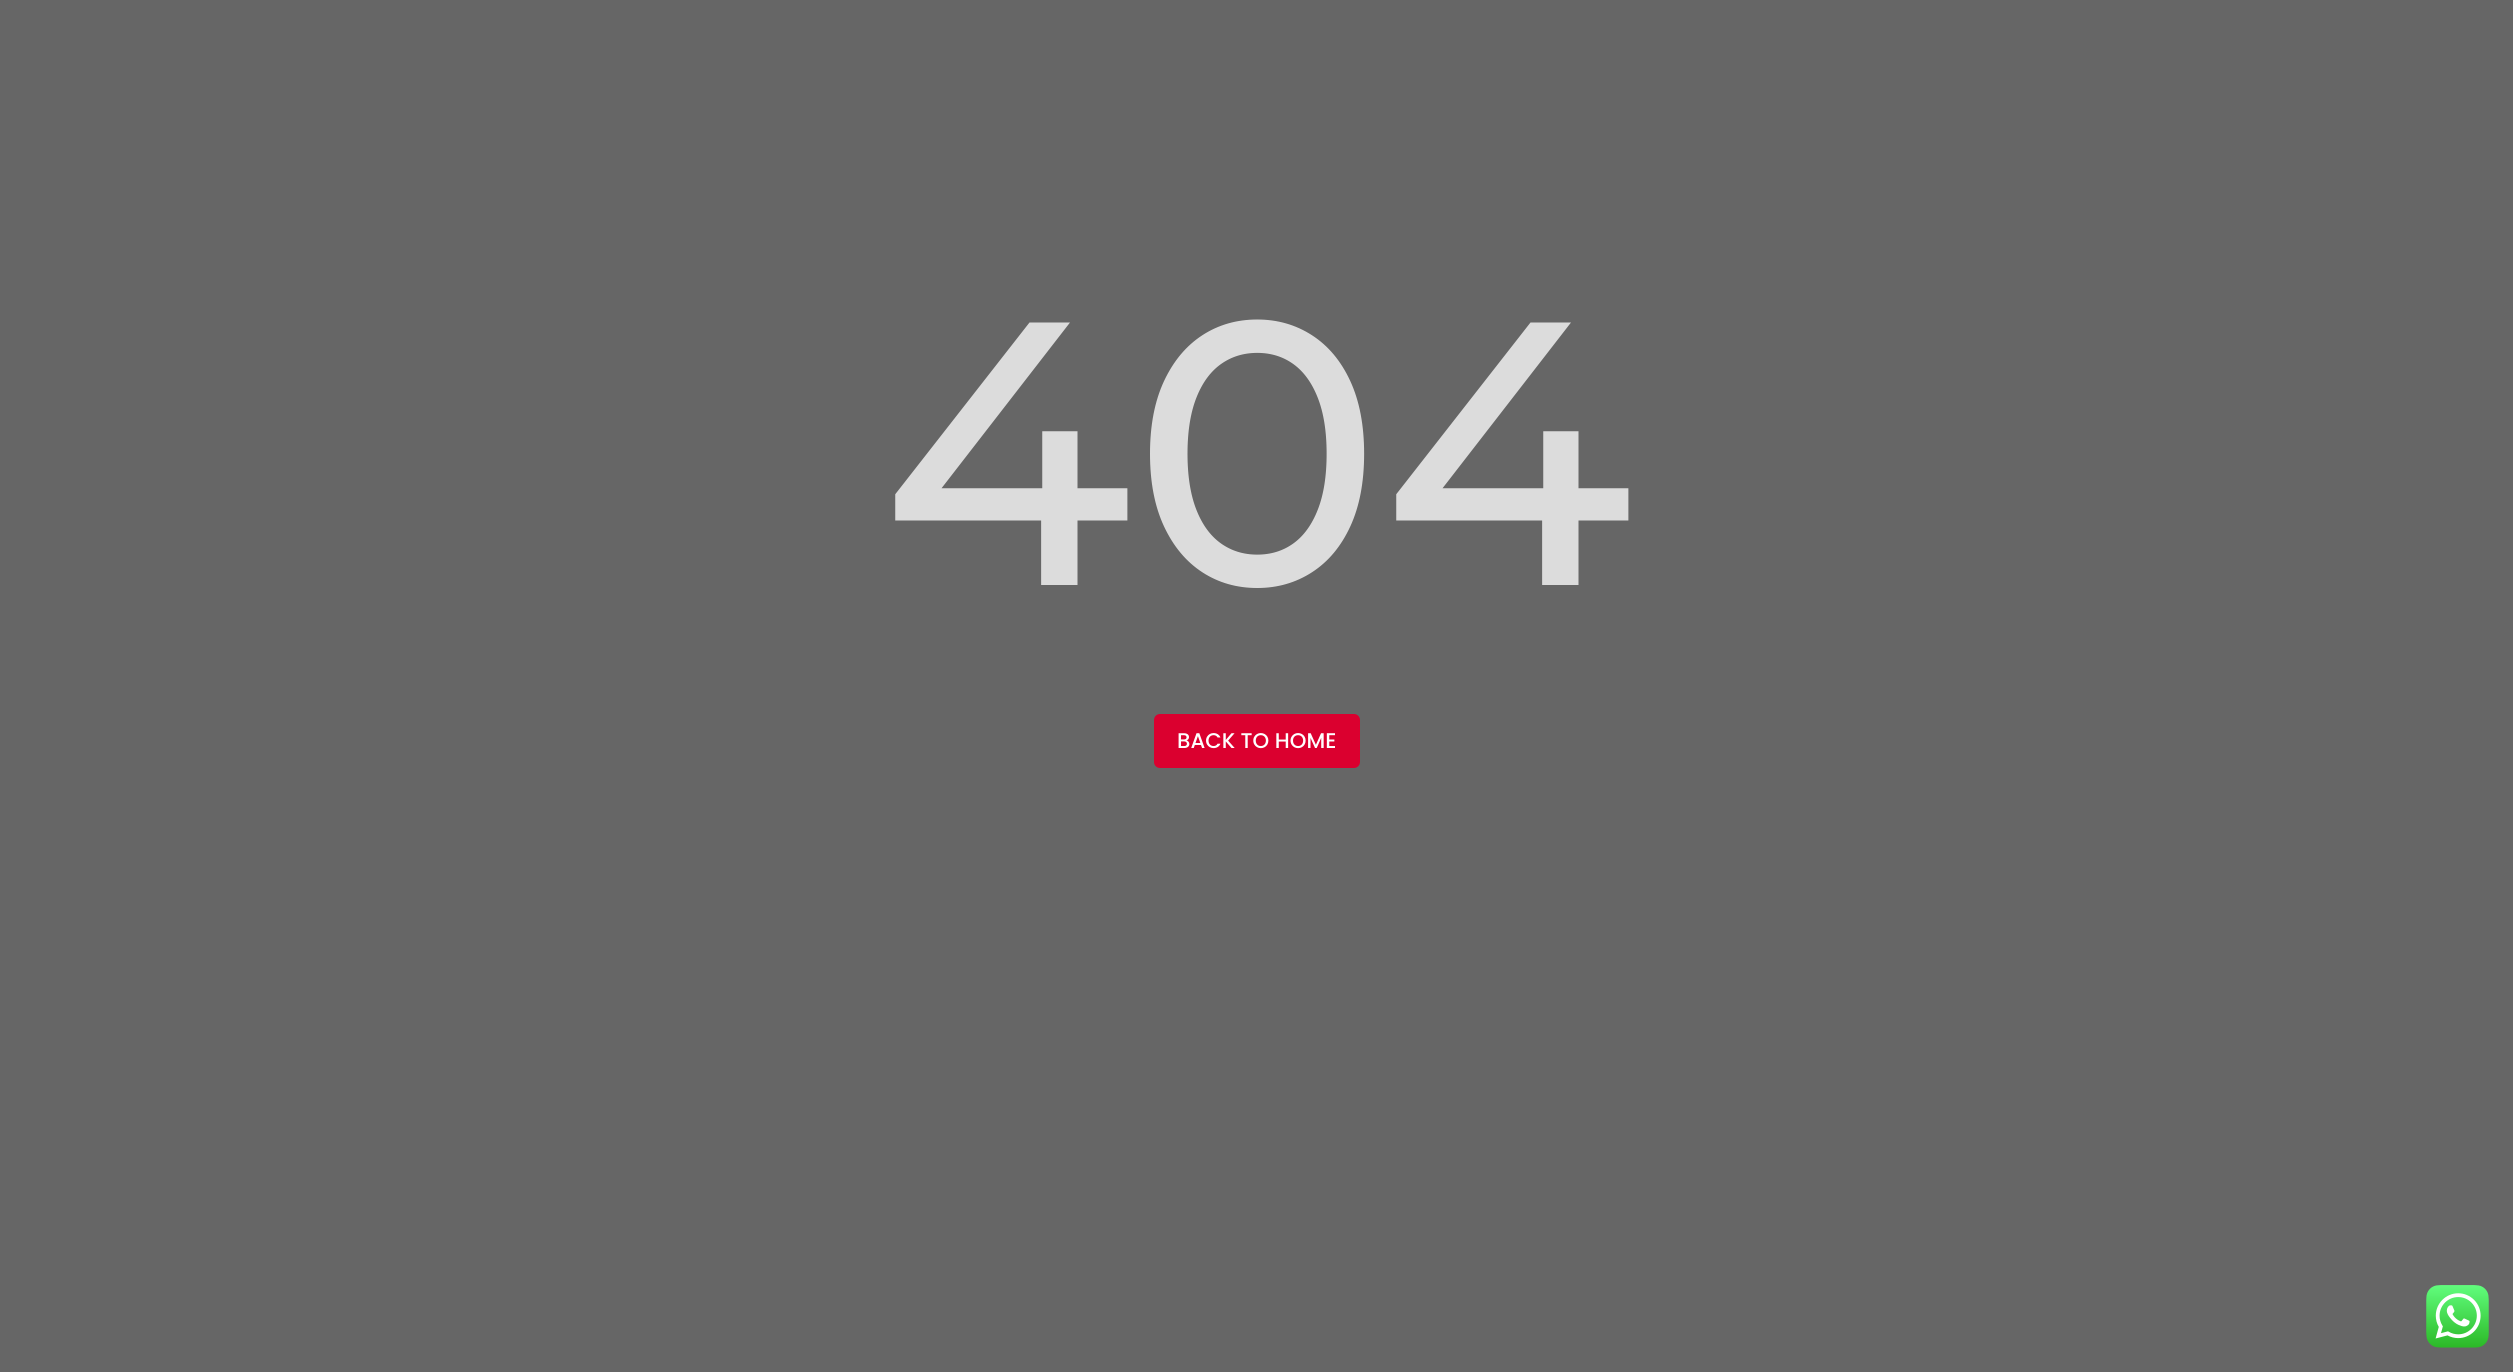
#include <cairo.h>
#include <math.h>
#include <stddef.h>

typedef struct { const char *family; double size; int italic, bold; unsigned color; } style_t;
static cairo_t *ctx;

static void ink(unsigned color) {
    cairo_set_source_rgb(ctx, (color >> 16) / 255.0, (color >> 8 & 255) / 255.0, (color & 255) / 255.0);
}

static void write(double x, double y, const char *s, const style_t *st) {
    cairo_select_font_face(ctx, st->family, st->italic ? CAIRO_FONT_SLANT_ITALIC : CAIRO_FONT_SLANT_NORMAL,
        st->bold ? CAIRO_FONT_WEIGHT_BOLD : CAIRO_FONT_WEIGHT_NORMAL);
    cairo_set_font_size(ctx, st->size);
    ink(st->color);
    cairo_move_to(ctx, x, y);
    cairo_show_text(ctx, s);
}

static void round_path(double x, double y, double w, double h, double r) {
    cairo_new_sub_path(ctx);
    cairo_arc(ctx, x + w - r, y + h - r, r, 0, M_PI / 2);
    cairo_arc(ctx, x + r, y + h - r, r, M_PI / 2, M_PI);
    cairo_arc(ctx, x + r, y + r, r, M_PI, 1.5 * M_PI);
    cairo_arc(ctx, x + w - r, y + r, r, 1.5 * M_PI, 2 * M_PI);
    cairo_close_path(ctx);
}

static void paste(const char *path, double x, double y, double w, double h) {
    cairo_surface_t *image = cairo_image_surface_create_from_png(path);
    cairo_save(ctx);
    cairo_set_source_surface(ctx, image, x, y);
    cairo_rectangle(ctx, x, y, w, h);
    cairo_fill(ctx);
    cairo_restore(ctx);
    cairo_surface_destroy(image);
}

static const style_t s1 = {"Montserrat Medium", 375, 0, 0, 0xdcdcdc};
static const style_t s2 = {"Poppins Medium", 21.25, 0, 0, 0xffffff};

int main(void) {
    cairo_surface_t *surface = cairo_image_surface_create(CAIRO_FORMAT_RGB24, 2513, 1372);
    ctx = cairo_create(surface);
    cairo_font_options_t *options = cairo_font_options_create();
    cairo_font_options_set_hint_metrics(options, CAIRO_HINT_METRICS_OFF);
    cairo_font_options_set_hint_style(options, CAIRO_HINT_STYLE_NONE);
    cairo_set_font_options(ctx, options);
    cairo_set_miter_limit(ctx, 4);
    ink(0x666666);
    cairo_paint(ctx);
    write(881, 585, "404", &s1);
    ink(0xdb002f);
    round_path(1155.5, 715.5, 203, 51, 4.5);
    cairo_fill_preserve(ctx);
    cairo_set_line_width(ctx, 3);
    cairo_stroke(ctx);
    write(1177, 748, "BACK TO HOME", &s2);
    paste("pic1.png", 2426, 1285, 63, 63);
    cairo_surface_write_to_png(surface, "screenshot.png");
    cairo_font_options_destroy(options);
    cairo_destroy(ctx);
    cairo_surface_destroy(surface);
    return 0;
}
